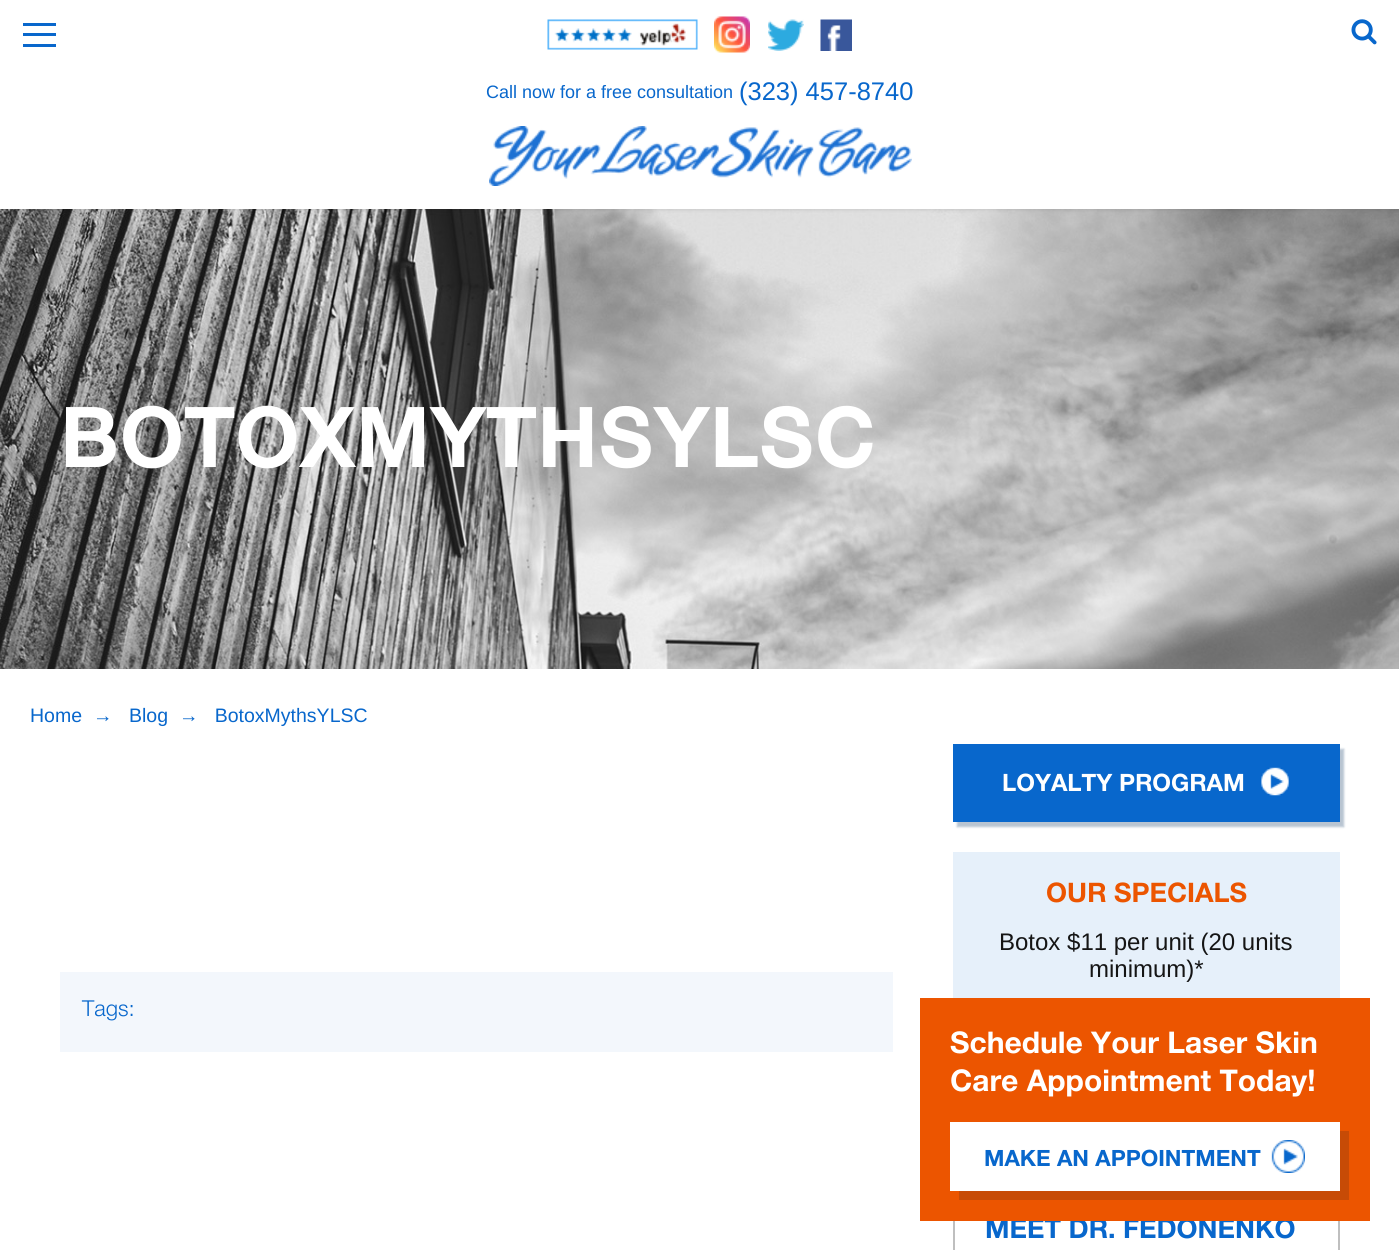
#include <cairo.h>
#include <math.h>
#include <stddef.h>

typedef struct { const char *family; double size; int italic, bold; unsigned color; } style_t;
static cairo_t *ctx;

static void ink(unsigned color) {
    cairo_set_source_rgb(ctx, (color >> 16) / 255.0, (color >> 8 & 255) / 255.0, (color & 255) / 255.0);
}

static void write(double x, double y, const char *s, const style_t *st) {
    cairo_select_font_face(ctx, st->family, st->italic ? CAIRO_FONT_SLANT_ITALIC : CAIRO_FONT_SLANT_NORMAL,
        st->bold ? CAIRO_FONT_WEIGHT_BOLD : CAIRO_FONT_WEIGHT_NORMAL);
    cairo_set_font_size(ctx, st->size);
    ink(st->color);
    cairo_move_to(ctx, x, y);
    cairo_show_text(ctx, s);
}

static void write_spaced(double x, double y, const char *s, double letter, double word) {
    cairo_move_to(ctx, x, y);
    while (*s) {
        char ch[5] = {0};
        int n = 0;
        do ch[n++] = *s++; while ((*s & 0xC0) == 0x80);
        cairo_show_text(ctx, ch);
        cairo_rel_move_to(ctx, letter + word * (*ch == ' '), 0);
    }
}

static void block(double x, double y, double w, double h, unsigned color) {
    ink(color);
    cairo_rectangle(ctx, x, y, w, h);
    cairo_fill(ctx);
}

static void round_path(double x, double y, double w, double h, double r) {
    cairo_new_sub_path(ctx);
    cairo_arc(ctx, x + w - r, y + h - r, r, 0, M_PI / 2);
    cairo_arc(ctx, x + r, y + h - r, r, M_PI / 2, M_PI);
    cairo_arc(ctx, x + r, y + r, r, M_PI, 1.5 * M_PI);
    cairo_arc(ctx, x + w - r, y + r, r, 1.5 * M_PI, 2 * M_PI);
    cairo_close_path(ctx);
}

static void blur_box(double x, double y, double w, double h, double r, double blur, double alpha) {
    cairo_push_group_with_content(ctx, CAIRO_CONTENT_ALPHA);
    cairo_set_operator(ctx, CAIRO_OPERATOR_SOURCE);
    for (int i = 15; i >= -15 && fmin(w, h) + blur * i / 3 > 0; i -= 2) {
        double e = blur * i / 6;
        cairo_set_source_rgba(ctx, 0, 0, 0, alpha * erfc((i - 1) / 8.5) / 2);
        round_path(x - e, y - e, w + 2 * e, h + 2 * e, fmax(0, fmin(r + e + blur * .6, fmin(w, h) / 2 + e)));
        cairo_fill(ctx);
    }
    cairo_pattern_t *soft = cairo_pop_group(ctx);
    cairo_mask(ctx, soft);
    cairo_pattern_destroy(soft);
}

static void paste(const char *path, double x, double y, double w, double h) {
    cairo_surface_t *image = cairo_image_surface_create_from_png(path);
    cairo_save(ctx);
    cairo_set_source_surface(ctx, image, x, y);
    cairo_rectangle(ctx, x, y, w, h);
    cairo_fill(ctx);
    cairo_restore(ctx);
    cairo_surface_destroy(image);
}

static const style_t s1 = {"Liberation Sans", 18, 0, 0, 0x0867cc};
static const style_t s2 = {"Liberation Sans", 25.5, 0, 0, 0x0867cc};
static const style_t s3 = {"Liberation Sans", 19.5, 0, 0, 0x0867cc};
static const style_t s4 = {"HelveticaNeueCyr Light", 22, 0, 0, 0x0867cc};
static const style_t s5 = {"HelveticaNeueCyr", 24, 0, 1, 0xffffff};
static const style_t s6 = {"HelveticaNeueCyr", 27, 0, 1, 0xec5500};
static const style_t s7 = {"Liberation Sans", 24, 0, 0, 0x151515};
static const style_t s8 = {"HelveticaNeueCyr", 27, 0, 1, 0x0867cc};
static const style_t s9 = {"HelveticaNeueCyr", 30, 0, 1, 0xffffff};
static const style_t s10 = {"HelveticaNeueCyr", 22.5, 0, 1, 0x0867cc};

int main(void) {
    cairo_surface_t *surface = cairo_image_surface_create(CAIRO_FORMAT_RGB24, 1399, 1250);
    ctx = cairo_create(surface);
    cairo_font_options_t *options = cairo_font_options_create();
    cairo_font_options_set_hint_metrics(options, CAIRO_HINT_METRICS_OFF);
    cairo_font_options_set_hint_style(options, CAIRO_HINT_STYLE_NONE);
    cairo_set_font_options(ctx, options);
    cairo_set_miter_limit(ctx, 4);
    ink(0xffffff);
    cairo_paint(ctx);
    paste("pic7.png", 0, 209, 1399, 460);
    ink(0x000000);
    blur_box(0, 2, 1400, 208, 0, 1.5, 0.1);
    block(0, 0, 1399, 209, 0xffffff);
    block(23, 23, 33, 3, 0x0867cc);
    block(23, 33, 33, 3, 0x0867cc);
    block(23, 44, 33, 3, 0x0867cc);
    paste("pic1.png", 1351, 19, 26, 26);
    paste("pic2.png", 547, 19, 151, 31);
    paste("pic3.png", 714, 16, 36, 37);
    paste("pic4.png", 768, 19, 36, 32);
    paste("pic5.png", 820, 19, 32, 32);
    write(486, 98, "Call now for a free consultation", &s1);
    write(739, 100, "(323) 457-8740", &s2);
    paste("pic6.png", 489, 126, 423, 60);
    cairo_select_font_face(ctx, "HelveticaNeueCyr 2", CAIRO_FONT_SLANT_NORMAL, CAIRO_FONT_WEIGHT_BOLD);
    cairo_set_font_size(ctx, 81);
    ink(0xffffff);
    write_spaced(60, 467, "BOTOXMYTHSYLSC", 3, 0);
    write(30, 722, "Home", &s3);
    write(93, 722, "→", &s3);
    write(129, 722, "Blog", &s3);
    write(179, 722, "→   BotoxMythsYLSC", &s3);
    block(60, 972, 833, 80, 0xf3f7fc);
    write(82, 1016, "Tags:", &s4);
    ink(0x7990a9);
    blur_box(957, 749, 387, 78, 0, 1, 0.53);
    block(953, 744, 387, 78, 0x0867cc);
    write(1002, 791, "LOYALTY PROGRAM", &s5);
    paste("pic8.png", 1261, 767, 28, 29);
    block(953, 852, 387, 146, 0xe6f0fa);
    write(1046, 902, "OUR SPECIALS", &s6);
    write(999, 950, "Botox $11 per unit (20 units", &s7);
    write(1089, 977, "minimum)*", &s7);
    cairo_rectangle(ctx, 954, 1188, 385, 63);
    ink(0xbfbfbf);
    cairo_stroke(ctx);
    write(985, 1238, "MEET DR. FEDONENKO", &s8);
    block(920, 998, 450, 223, 0xec5500);
    write(950, 1053, "Schedule Your Laser Skin", &s9);
    write(950, 1091, "Care Appointment Today!", &s9);
    ink(0xc74b06);
    cairo_new_path(ctx);
    cairo_move_to(ctx, 959, 1191);
    cairo_line_to(ctx, 959, 1200);
    cairo_line_to(ctx, 1349, 1200);
    cairo_line_to(ctx, 1349, 1131);
    cairo_line_to(ctx, 1340, 1131);
    cairo_line_to(ctx, 1340, 1191);
    cairo_close_path(ctx);
    cairo_fill(ctx);
    block(950, 1122, 390, 69, 0xffffff);
    write(984, 1166, "MAKE AN APPOINTMENT", &s10);
    paste("pic9.png", 1271, 1140, 34, 33);
    cairo_surface_write_to_png(surface, "screenshot.png");
    cairo_font_options_destroy(options);
    cairo_destroy(ctx);
    cairo_surface_destroy(surface);
    return 0;
}
